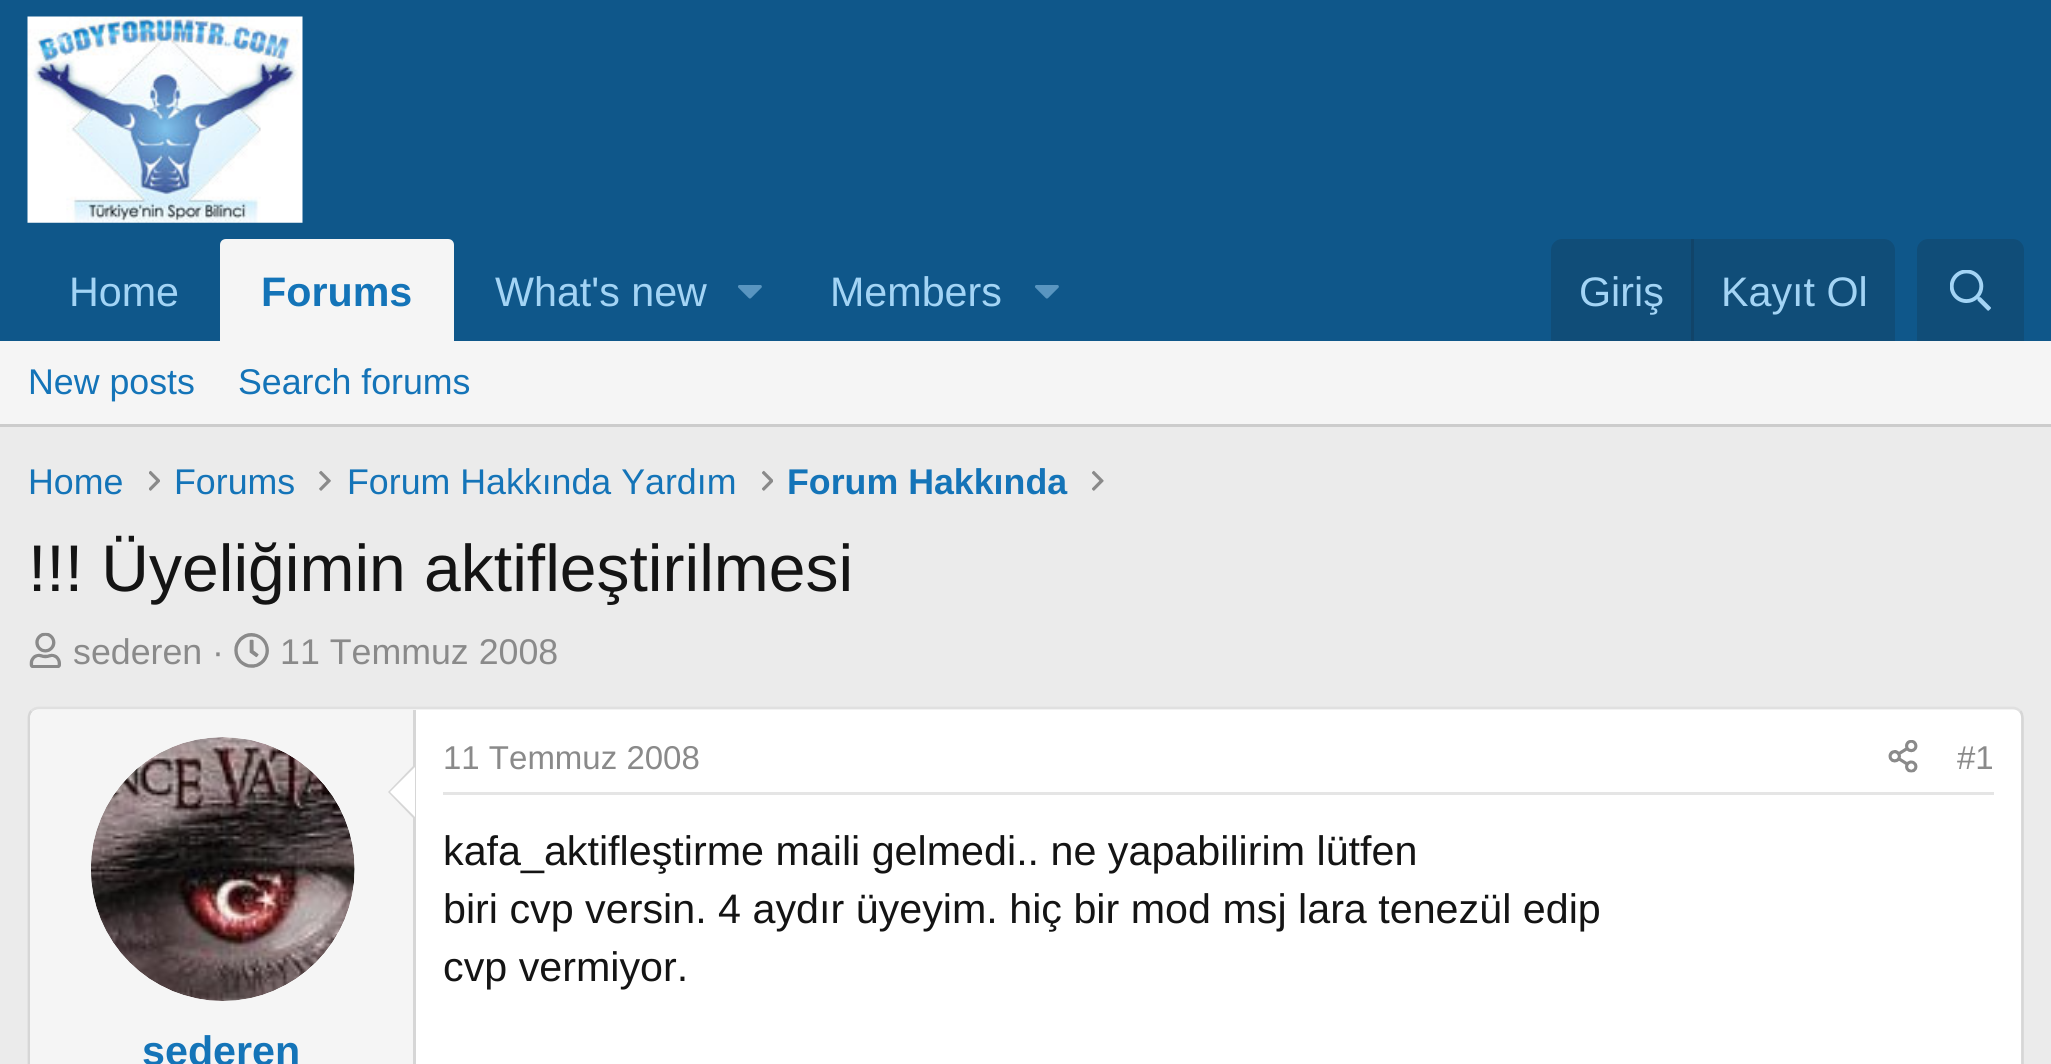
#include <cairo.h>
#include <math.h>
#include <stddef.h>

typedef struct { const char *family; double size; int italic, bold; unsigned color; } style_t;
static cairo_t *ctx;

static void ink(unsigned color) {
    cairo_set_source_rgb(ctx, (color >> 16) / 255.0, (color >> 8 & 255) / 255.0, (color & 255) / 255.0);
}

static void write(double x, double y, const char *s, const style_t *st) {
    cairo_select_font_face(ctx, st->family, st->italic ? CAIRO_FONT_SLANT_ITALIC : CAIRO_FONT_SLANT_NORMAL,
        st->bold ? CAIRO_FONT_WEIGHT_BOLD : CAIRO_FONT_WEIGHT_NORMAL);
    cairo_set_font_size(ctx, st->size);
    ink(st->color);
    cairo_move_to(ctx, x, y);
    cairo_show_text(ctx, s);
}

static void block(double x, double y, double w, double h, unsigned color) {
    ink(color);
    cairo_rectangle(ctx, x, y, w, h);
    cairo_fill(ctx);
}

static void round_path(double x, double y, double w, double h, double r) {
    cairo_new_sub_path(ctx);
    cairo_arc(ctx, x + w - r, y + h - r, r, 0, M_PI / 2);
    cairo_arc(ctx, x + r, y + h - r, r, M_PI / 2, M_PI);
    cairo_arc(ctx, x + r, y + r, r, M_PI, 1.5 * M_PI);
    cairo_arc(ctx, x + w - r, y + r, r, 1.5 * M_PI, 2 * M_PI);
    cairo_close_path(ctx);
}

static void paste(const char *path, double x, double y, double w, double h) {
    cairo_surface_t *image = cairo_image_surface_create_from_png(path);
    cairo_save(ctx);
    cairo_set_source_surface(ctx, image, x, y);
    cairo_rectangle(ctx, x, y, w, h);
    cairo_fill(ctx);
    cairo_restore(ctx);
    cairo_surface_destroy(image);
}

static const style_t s1 = {"Liberation Sans", 41.25, 0, 0, 0xa3d4f5};
static const style_t s2 = {"Liberation Sans", 41.25, 0, 1, 0x1474b8};
static const style_t s3 = {"Liberation Sans", 35.75, 0, 0, 0x1474b8};
static const style_t s4 = {"Liberation Sans", 35.75, 0, 1, 0x1474b8};
static const style_t s5 = {"Liberation Sans", 66, 0, 0, 0x141414};
static const style_t s6 = {"Liberation Sans", 35.75, 0, 0, 0x8a8a8a};
static const style_t s7 = {"Liberation Sans", 33, 0, 0, 0x8a8a8a};
static const style_t s8 = {"Liberation Sans", 41.25, 0, 0, 0x141414};

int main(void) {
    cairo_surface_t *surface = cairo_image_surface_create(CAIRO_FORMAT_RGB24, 2051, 1064);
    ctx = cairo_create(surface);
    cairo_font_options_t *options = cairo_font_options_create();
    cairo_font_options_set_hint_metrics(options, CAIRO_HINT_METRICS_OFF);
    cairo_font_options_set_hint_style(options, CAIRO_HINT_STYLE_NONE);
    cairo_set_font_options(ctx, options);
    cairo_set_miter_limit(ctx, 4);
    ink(0xebebeb);
    cairo_paint(ctx);
    block(0, 0, 2051, 341, 0x0f578a);
    paste("pic1.png", 27, 16, 276, 207);
    write(69, 306, "Home", &s1);
    ink(0xf5f5f5);
    cairo_new_path(ctx);
    cairo_move_to(ctx, 226, 239);
    cairo_line_to(ctx, 448, 239);
    cairo_curve_to(ctx, 451.5, 239, 454, 241.5, 454, 245);
    cairo_line_to(ctx, 454, 341);
    cairo_line_to(ctx, 220, 341);
    cairo_line_to(ctx, 220, 245);
    cairo_curve_to(ctx, 220, 241.5, 222.5, 239, 226, 239);
    cairo_close_path(ctx);
    cairo_fill(ctx);
    write(261, 306, "Forums", &s2);
    write(495, 306, "What's new", &s1);
    paste("pic2.png", 738, 285, 24, 14);
    write(830, 306, "Members", &s1);
    paste("pic2.png", 1035, 285, 24, 14);
    ink(0x104d78);
    cairo_new_path(ctx);
    cairo_move_to(ctx, 1562, 239);
    cairo_line_to(ctx, 1884, 239);
    cairo_curve_to(ctx, 1890, 239, 1895, 244, 1895, 250);
    cairo_line_to(ctx, 1895, 341);
    cairo_line_to(ctx, 1551, 341);
    cairo_line_to(ctx, 1551, 250);
    cairo_curve_to(ctx, 1551, 244, 1556, 239, 1562, 239);
    cairo_close_path(ctx);
    cairo_fill(ctx);
    write(1579, 306, "Giriş", &s1);
    block(1691, 239, 3, 102, 0x114469);
    write(1721, 306, "Kayıt Ol", &s1);
    ink(0x104d78);
    cairo_new_path(ctx);
    cairo_move_to(ctx, 1928, 239);
    cairo_line_to(ctx, 2013, 239);
    cairo_curve_to(ctx, 2019, 239, 2024, 244, 2024, 250);
    cairo_line_to(ctx, 2024, 341);
    cairo_line_to(ctx, 1917, 341);
    cairo_line_to(ctx, 1917, 250);
    cairo_curve_to(ctx, 1917, 244, 1922, 239, 1928, 239);
    cairo_close_path(ctx);
    cairo_fill(ctx);
    paste("pic3.png", 1950, 270, 41, 41);
    block(0, 341, 2051, 83, 0xf5f5f5);
    block(0, 424, 2051, 3, 0xcccccc);
    write(28, 394, "New posts", &s3);
    write(238, 394, "Search forums", &s3);
    write(28, 494, "Home", &s3);
    paste("pic4.png", 149, 470, 11, 21);
    write(174, 494, "Forums", &s3);
    paste("pic5.png", 319, 470, 12, 21);
    write(347, 494, "Forum Hakkında Yardım", &s3);
    paste("pic6.png", 762, 470, 11, 21);
    write(787, 494, "Forum Hakkında", &s4);
    paste("pic7.png", 1092, 470, 12, 21);
    write(28, 591, "!!! Üyeliğimin aktifleştirilmesi", &s5);
    paste("pic8.png", 29, 632, 32, 36);
    write(73, 664, "sederen ·", &s6);
    paste("pic9.png", 234, 633, 35, 35);
    write(280, 664, "11 Temmuz 2008", &s6);
    ink(0xffffff);
    round_path(28, 707, 1996, 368, 11);
    cairo_fill(ctx);
    cairo_new_path(ctx);
    cairo_move_to(ctx, 31.5, 711);
    cairo_curve_to(ctx, 33.5, 709, 36, 708, 38.5, 708);
    cairo_line_to(ctx, 2013, 708);
    cairo_curve_to(ctx, 2015.5, 708, 2018, 709, 2020, 711);
    ink(0xe0e0e0);
    cairo_set_line_width(ctx, 2.8);
    cairo_stroke(ctx);
    cairo_new_path(ctx);
    cairo_move_to(ctx, 2020, 711);
    cairo_curve_to(ctx, 2021.5, 712.5, 2022.5, 715, 2022.5, 718);
    cairo_line_to(ctx, 2022.5, 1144);
    cairo_curve_to(ctx, 2022.5, 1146.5, 2021.5, 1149, 2020, 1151);
    ink(0xd6d6d6);
    cairo_stroke(ctx);
    cairo_new_path(ctx);
    cairo_move_to(ctx, 31.5, 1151);
    cairo_curve_to(ctx, 30, 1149, 29, 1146.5, 29, 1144);
    cairo_line_to(ctx, 29, 718);
    cairo_curve_to(ctx, 29, 715, 30, 712.5, 31.5, 711);
    cairo_stroke(ctx);
    block(443, 792, 1551, 3, 0xe5e5e5);
    write(443, 769, "11 Temmuz 2008", &s7);
    paste("pic10.png", 1888, 740, 30, 33);
    write(1957, 769, "#1", &s7);
    write(443, 865, "kafa_aktifleştirme maili gelmedi.. ne yapabilirim lütfen", &s8);
    write(443, 923, "biri cvp versin. 4 aydır üyeyim. hiç bir mod msj lara tenezül edip", &s8);
    write(443, 981, "cvp vermiyor.", &s8);
    ink(0xf5f5f5);
    cairo_new_path(ctx);
    cairo_move_to(ctx, 38, 710);
    cairo_line_to(ctx, 415, 710);
    cairo_line_to(ctx, 415, 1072);
    cairo_line_to(ctx, 38, 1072);
    cairo_curve_to(ctx, 33.5, 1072, 30, 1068.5, 30, 1064);
    cairo_line_to(ctx, 30, 718);
    cairo_curve_to(ctx, 30, 713.5, 33.5, 710, 38, 710);
    cairo_close_path(ctx);
    cairo_fill(ctx);
    block(413, 710, 3, 354, 0xd6d6d6);
    ink(0xffffff);
    cairo_arc(ctx, 223, 869, 132, 0, 2 * M_PI);
    cairo_fill(ctx);
    paste("pic11.png", 91, 737, 264, 264);
    ink(0xd6d6d6);
    cairo_new_path(ctx);
    cairo_move_to(ctx, 415, 764);
    cairo_line_to(ctx, 415, 820);
    cairo_line_to(ctx, 388, 792);
    cairo_close_path(ctx);
    cairo_fill(ctx);
    ink(0xffffff);
    cairo_new_path(ctx);
    cairo_move_to(ctx, 415, 767);
    cairo_line_to(ctx, 415, 817);
    cairo_line_to(ctx, 390, 792);
    cairo_close_path(ctx);
    cairo_fill(ctx);
    write(142, 1065, "sederen", &s2);
    cairo_surface_write_to_png(surface, "screenshot.png");
    cairo_font_options_destroy(options);
    cairo_destroy(ctx);
    cairo_surface_destroy(surface);
    return 0;
}
